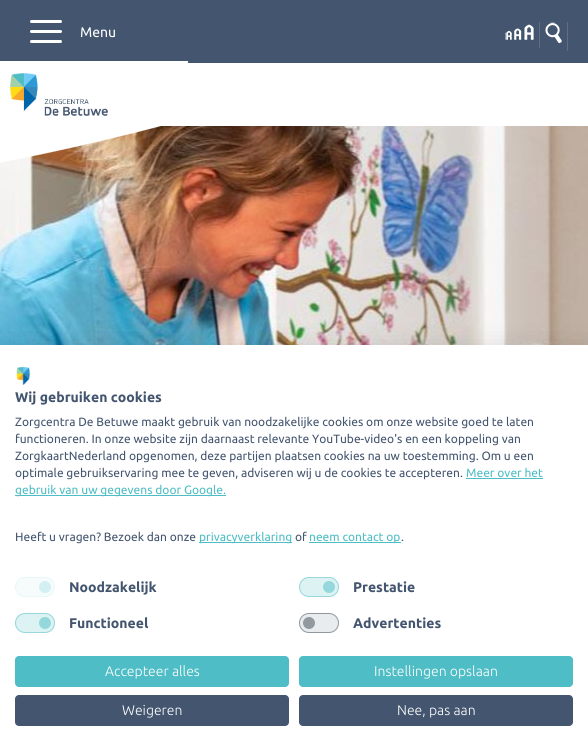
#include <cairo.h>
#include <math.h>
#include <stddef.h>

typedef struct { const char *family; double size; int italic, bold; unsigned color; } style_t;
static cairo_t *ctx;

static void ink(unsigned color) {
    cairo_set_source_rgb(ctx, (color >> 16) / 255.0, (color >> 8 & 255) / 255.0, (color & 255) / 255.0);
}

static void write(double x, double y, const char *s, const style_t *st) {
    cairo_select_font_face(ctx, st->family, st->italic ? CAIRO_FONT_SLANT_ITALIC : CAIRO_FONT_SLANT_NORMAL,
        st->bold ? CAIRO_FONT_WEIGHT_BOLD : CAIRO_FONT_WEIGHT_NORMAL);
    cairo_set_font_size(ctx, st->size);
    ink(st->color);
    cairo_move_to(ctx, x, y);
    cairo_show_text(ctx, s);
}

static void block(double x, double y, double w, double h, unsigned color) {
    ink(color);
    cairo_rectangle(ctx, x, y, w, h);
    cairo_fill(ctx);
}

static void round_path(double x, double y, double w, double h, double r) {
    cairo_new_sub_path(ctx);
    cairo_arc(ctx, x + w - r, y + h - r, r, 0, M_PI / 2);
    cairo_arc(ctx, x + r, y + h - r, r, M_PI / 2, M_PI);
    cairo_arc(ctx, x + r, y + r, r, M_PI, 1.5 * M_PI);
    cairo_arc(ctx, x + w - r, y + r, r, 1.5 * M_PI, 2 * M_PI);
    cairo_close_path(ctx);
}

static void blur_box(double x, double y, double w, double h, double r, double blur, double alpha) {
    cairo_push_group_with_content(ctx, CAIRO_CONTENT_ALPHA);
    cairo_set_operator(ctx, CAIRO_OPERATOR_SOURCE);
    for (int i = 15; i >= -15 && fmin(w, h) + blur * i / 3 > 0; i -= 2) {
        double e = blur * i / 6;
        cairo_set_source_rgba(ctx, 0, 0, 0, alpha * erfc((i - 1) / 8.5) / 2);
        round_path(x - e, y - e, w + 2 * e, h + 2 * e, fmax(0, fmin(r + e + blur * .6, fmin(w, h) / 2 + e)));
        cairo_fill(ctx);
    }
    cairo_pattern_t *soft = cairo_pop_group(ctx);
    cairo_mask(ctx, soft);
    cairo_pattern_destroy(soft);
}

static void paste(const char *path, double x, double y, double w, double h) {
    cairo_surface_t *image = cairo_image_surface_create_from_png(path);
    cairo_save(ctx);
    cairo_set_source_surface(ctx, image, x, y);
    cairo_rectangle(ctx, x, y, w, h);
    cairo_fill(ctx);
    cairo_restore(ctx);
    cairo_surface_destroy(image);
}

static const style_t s1 = {"Ubuntu", 14, 0, 0, 0xffffff};
static const style_t s2 = {"Ubuntu", 14, 0, 1, 0x44556f};
static const style_t s3 = {"Ubuntu", 12, 0, 0, 0x44556f};
static const style_t s4 = {"Ubuntu", 12, 0, 0, 0x4ebdc5};
static const style_t s5 = {"Ubuntu Light", 14, 0, 0, 0xffffff};

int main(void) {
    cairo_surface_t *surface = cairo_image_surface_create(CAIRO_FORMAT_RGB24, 588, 753);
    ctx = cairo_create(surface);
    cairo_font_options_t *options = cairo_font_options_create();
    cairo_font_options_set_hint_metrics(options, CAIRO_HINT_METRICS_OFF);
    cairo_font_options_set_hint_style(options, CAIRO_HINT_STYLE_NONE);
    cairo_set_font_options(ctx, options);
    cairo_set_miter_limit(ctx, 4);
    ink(0xffffff);
    cairo_paint(ctx);
    block(0, 0, 588, 63, 0x44556f);
    block(539, 22, 1, 26, 0x606d84);
    paste("pic1.png", 505, 24, 29, 17);
    block(567, 22, 1, 29, 0x606d84);
    paste("pic2.png", 545, 22, 17, 22);
    ink(0xffffff);
    round_path(30, 20, 32, 3, 1.5);
    cairo_fill(ctx);
    round_path(30, 30, 32, 3, 1.5);
    cairo_fill(ctx);
    round_path(30, 40, 32, 3, 1.5);
    cairo_fill(ctx);
    write(80, 37, "Menu", &s1);
    paste("pic5.png", 0, 126, 588, 219);
    paste("pic3.png", 0, 61, 189, 102);
    paste("pic4.png", 10, 73, 98, 43);
    ink(0x000000);
    blur_box(0, 345, 588, 408, 0, 12, 0.1);
    block(0, 345, 588, 408, 0xffffff);
    paste("pic6.png", 16, 367, 15, 18);
    write(15, 402, "Wij gebruiken cookies", &s2);
    write(15, 426, "Zorgcentra De Betuwe maakt gebruik van noodzakelijke cookies om onze website goed te laten", &s3);
    write(15, 443, "functioneren. In onze website zijn daarnaast relevante YouTube-video's en een koppeling van", &s3);
    write(15, 460, "ZorgkaartNederland opgenomen, deze partijen plaatsen cookies na uw toestemming. Om u een", &s3);
    write(15, 477, "optimale gebruikservaring mee te geven, adviseren wij u de cookies te accepteren.", &s3);
    write(466, 477, "Meer over het", &s4);
    block(466, 478, 77, 1, 0x4ebdc5);
    block(15, 495, 211, 1, 0x4ebdc5);
    write(15, 494, "gebruik van uw gegevens door Google.", &s4);
    write(15, 541, "Heeft u vragen? Bezoek dan onze", &s3);
    block(199, 542, 93, 1, 0x4ebdc5);
    write(199, 541, "privacyverklaring", &s4);
    write(295, 541, "of", &s3);
    block(309, 542, 92, 1, 0x4ebdc5);
    write(309, 541, "neem contact op", &s4);
    write(401, 541, ".", &s3);
    ink(0xf6fcfc);
    round_path(15, 577, 40, 20, 10);
    cairo_fill(ctx);
    ink(0xd3eff1);
    cairo_arc(ctx, 45, 587, 6, 0, 2 * M_PI);
    cairo_fill(ctx);
    round_path(15.5, 577.5, 39, 19, 9.5);
    ink(0xe9f7f8);
    cairo_set_line_width(ctx, 1);
    cairo_stroke(ctx);
    write(69, 592, "Noodzakelijk", &s2);
    ink(0xdcf2f3);
    round_path(299, 577, 40, 20, 10);
    cairo_fill(ctx);
    ink(0x95d8dc);
    cairo_arc(ctx, 329, 587, 6, 0, 2 * M_PI);
    cairo_fill(ctx);
    round_path(299.5, 577.5, 39, 19, 9.5);
    cairo_set_source_rgba(ctx, 0.306, 0.741, 0.773, 0.5);
    cairo_stroke(ctx);
    write(353, 592, "Prestatie", &s2);
    ink(0xdcf2f3);
    round_path(15, 613, 40, 20, 10);
    cairo_fill(ctx);
    ink(0x95d8dc);
    cairo_arc(ctx, 45, 623, 6, 0, 2 * M_PI);
    cairo_fill(ctx);
    round_path(15.5, 613.5, 39, 19, 9.5);
    cairo_set_source_rgba(ctx, 0.306, 0.741, 0.773, 0.5);
    cairo_stroke(ctx);
    write(69, 628, "Functioneel", &s2);
    ink(0xe9ecef);
    round_path(299, 613, 40, 20, 10);
    cairo_fill(ctx);
    ink(0x92999f);
    cairo_arc(ctx, 309, 623, 6, 0, 2 * M_PI);
    cairo_fill(ctx);
    round_path(299.5, 613.5, 39, 19, 9.5);
    cairo_set_source_rgba(ctx, 0.424, 0.459, 0.49, 0.7);
    cairo_stroke(ctx);
    write(353, 628, "Advertenties", &s2);
    ink(0x4ebdc5);
    round_path(15.5, 656.5, 273, 30, 3.5);
    cairo_fill_preserve(ctx);
    cairo_stroke(ctx);
    write(105, 676, "Accepteer alles", &s5);
    ink(0x4ebdc5);
    round_path(299.5, 656.5, 273, 30, 3.5);
    cairo_fill_preserve(ctx);
    cairo_stroke(ctx);
    write(374, 676, "Instellingen opslaan", &s5);
    ink(0x44556f);
    round_path(15.5, 695.5, 273, 30, 3.5);
    cairo_fill_preserve(ctx);
    cairo_stroke(ctx);
    write(122, 715, "Weigeren", &s5);
    ink(0x44556f);
    round_path(299.5, 695.5, 273, 30, 3.5);
    cairo_fill_preserve(ctx);
    cairo_stroke(ctx);
    write(397, 715, "Nee, pas aan", &s5);
    cairo_surface_write_to_png(surface, "screenshot.png");
    cairo_font_options_destroy(options);
    cairo_destroy(ctx);
    cairo_surface_destroy(surface);
    return 0;
}
